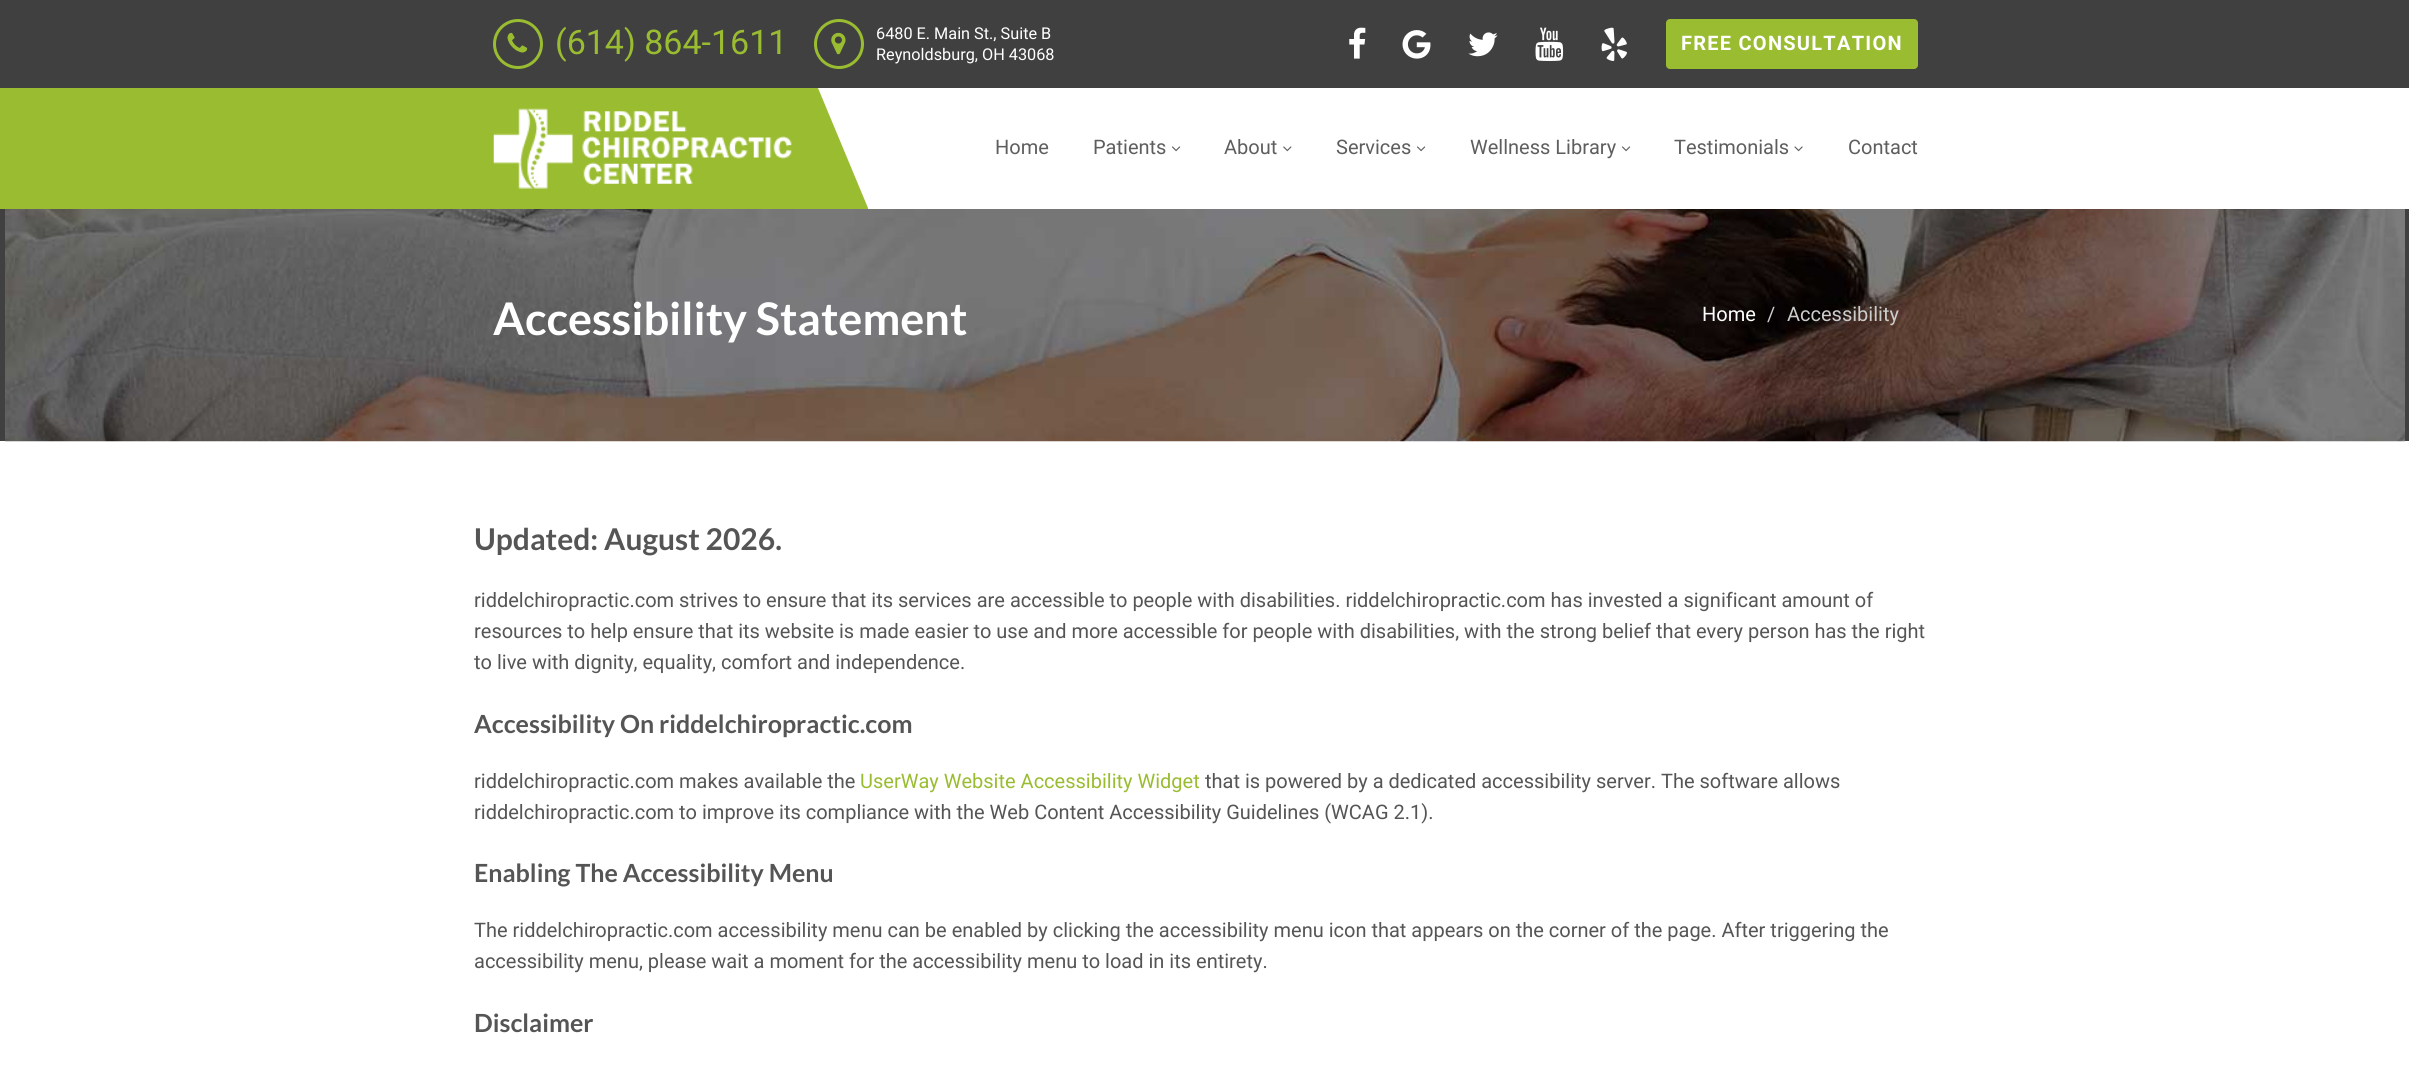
#include <cairo.h>
#include <math.h>
#include <stddef.h>

typedef struct { const char *family; double size; int italic, bold; unsigned color; } style_t;
static cairo_t *ctx;

static void ink(unsigned color) {
    cairo_set_source_rgb(ctx, (color >> 16) / 255.0, (color >> 8 & 255) / 255.0, (color & 255) / 255.0);
}

static void write(double x, double y, const char *s, const style_t *st) {
    cairo_select_font_face(ctx, st->family, st->italic ? CAIRO_FONT_SLANT_ITALIC : CAIRO_FONT_SLANT_NORMAL,
        st->bold ? CAIRO_FONT_WEIGHT_BOLD : CAIRO_FONT_WEIGHT_NORMAL);
    cairo_set_font_size(ctx, st->size);
    ink(st->color);
    cairo_move_to(ctx, x, y);
    cairo_show_text(ctx, s);
}

static void write_spaced(double x, double y, const char *s, double letter, double word) {
    cairo_move_to(ctx, x, y);
    while (*s) {
        char ch[5] = {0};
        int n = 0;
        do ch[n++] = *s++; while ((*s & 0xC0) == 0x80);
        cairo_show_text(ctx, ch);
        cairo_rel_move_to(ctx, letter + word * (*ch == ' '), 0);
    }
}

static void block(double x, double y, double w, double h, unsigned color) {
    ink(color);
    cairo_rectangle(ctx, x, y, w, h);
    cairo_fill(ctx);
}

static void round_path(double x, double y, double w, double h, double r) {
    cairo_new_sub_path(ctx);
    cairo_arc(ctx, x + w - r, y + h - r, r, 0, M_PI / 2);
    cairo_arc(ctx, x + r, y + h - r, r, M_PI / 2, M_PI);
    cairo_arc(ctx, x + r, y + r, r, M_PI, 1.5 * M_PI);
    cairo_arc(ctx, x + w - r, y + r, r, 1.5 * M_PI, 2 * M_PI);
    cairo_close_path(ctx);
}

static void paste(const char *path, double x, double y, double w, double h) {
    cairo_surface_t *image = cairo_image_surface_create_from_png(path);
    cairo_save(ctx);
    cairo_set_source_surface(ctx, image, x, y);
    cairo_rectangle(ctx, x, y, w, h);
    cairo_fill(ctx);
    cairo_restore(ctx);
    cairo_surface_destroy(image);
}

static const style_t s1 = {"Roboto", 34, 0, 0, 0x9abc31};
static const style_t s2 = {"Roboto", 16.25, 0, 0, 0xffffff};
static const style_t s3 = {"Roboto", 20, 0, 0, 0x5e5e5e};
static const style_t s4 = {"Lato", 45, 0, 1, 0xffffff};
static const style_t s5 = {"Roboto", 20, 0, 0, 0xffffff};
static const style_t s6 = {"Roboto", 20, 0, 0, 0xcccccc};
static const style_t s7 = {"Lato", 30, 0, 1, 0x555555};
static const style_t s8 = {"Roboto", 20, 0, 0, 0x555555};
static const style_t s9 = {"Lato", 25, 0, 1, 0x555555};
static const style_t s10 = {"Roboto", 20, 0, 0, 0x9abc31};

int main(void) {
    cairo_surface_t *surface = cairo_image_surface_create(CAIRO_FORMAT_RGB24, 2409, 1079);
    ctx = cairo_create(surface);
    cairo_font_options_t *options = cairo_font_options_create();
    cairo_font_options_set_hint_metrics(options, CAIRO_HINT_METRICS_OFF);
    cairo_font_options_set_hint_style(options, CAIRO_HINT_STYLE_NONE);
    cairo_set_font_options(ctx, options);
    cairo_set_miter_limit(ctx, 4);
    ink(0xffffff);
    cairo_paint(ctx);
    block(0, 0, 2409, 88, 0x404040);
    cairo_arc(ctx, 518, 44, 23.5, 0, 2 * M_PI);
    ink(0x9abc31);
    cairo_set_line_width(ctx, 3);
    cairo_stroke(ctx);
    paste("pic1.png", 507, 32, 21, 21);
    write(555, 54, "(614) 864-1611", &s1);
    cairo_new_path(ctx);
    cairo_arc(ctx, 839, 44, 23.5, 0, 2 * M_PI);
    cairo_stroke(ctx);
    paste("pic2.png", 831, 32, 15, 23);
    write(876, 39, "6480 E. Main St., Suite B", &s2);
    write(876, 60, "Reynoldsburg, OH 43068", &s2);
    paste("pic3.png", 1349, 27, 17, 32);
    paste("pic4.png", 1402, 30, 29, 29);
    paste("pic5.png", 1468, 32, 30, 25);
    paste("pic6.png", 1535, 27, 29, 34);
    paste("pic7.png", 1601, 27, 26, 34);
    ink(0x9abc31);
    round_path(1666, 19, 252, 50, 4);
    cairo_fill(ctx);
    cairo_select_font_face(ctx, "Roboto", CAIRO_FONT_SLANT_NORMAL, CAIRO_FONT_WEIGHT_BOLD);
    cairo_set_font_size(ctx, 20);
    ink(0xffffff);
    write_spaced(1681, 50, "FREE CONSULTATION", 1.25, 0);
    block(0, 88, 868, 121, 0x9abc31);
    paste("pic8.png", 493, 108, 299, 81);
    ink(0xffffff);
    cairo_new_path(ctx);
    cairo_move_to(ctx, 868, 88);
    cairo_line_to(ctx, 868, 208);
    cairo_line_to(ctx, 818, 88);
    cairo_close_path(ctx);
    cairo_fill(ctx);
    write(995, 154, "Home", &s3);
    write(1093, 154, "Patients", &s3);
    paste("pic9.png", 1172, 146, 9, 6);
    write(1224, 154, "About", &s3);
    paste("pic10.png", 1283, 146, 9, 6);
    write(1336, 154, "Services", &s3);
    paste("pic9.png", 1417, 146, 9, 6);
    write(1470, 154, "Wellness Library", &s3);
    paste("pic9.png", 1622, 146, 9, 6);
    write(1674, 154, "Testimonials", &s3);
    paste("pic11.png", 1794, 146, 9, 6);
    write(1848, 154, "Contact", &s3);
    block(0, 209, 2409, 232, 0x404040);
    paste("pic12.png", 5, 209, 2400, 233);
    write(493, 335, "Accessibility Statement", &s4);
    write(1702, 321, "Home", &s5);
    write(1767, 321, "/", &s6);
    write(1787, 321, "Accessibility", &s6);
    write(474, 550, "Updated: August 2026.", &s7);
    write(474, 607, "riddelchiropractic.com strives to ensure that its services are accessible to people with disabilities. riddelchiropractic.com has invested a significant amount of", &s8);
    write(474, 638, "resources to help ensure that its website is made easier to use and more accessible for people with disabilities, with the strong belief that every person has the right", &s8);
    write(474, 669, "to live with dignity, equality, comfort and independence.", &s8);
    write(474, 733, "Accessibility On riddelchiropractic.com", &s9);
    write(474, 788, "riddelchiropractic.com makes available the", &s8);
    write(860, 788, "UserWay Website Accessibility Widget", &s10);
    write(1205, 788, "that is powered by a dedicated accessibility server. The software allows", &s8);
    write(474, 819, "riddelchiropractic.com to improve its compliance with the Web Content Accessibility Guidelines (WCAG 2.1).", &s8);
    write(474, 882, "Enabling The Accessibility Menu", &s9);
    write(474, 937, "The riddelchiropractic.com accessibility menu can be enabled by clicking the accessibility menu icon that appears on the corner of the page. After triggering the", &s8);
    write(474, 968, "accessibility menu, please wait a moment for the accessibility menu to load in its entirety.", &s8);
    write(474, 1032, "Disclaimer", &s9);
    cairo_surface_write_to_png(surface, "screenshot.png");
    cairo_font_options_destroy(options);
    cairo_destroy(ctx);
    cairo_surface_destroy(surface);
    return 0;
}
